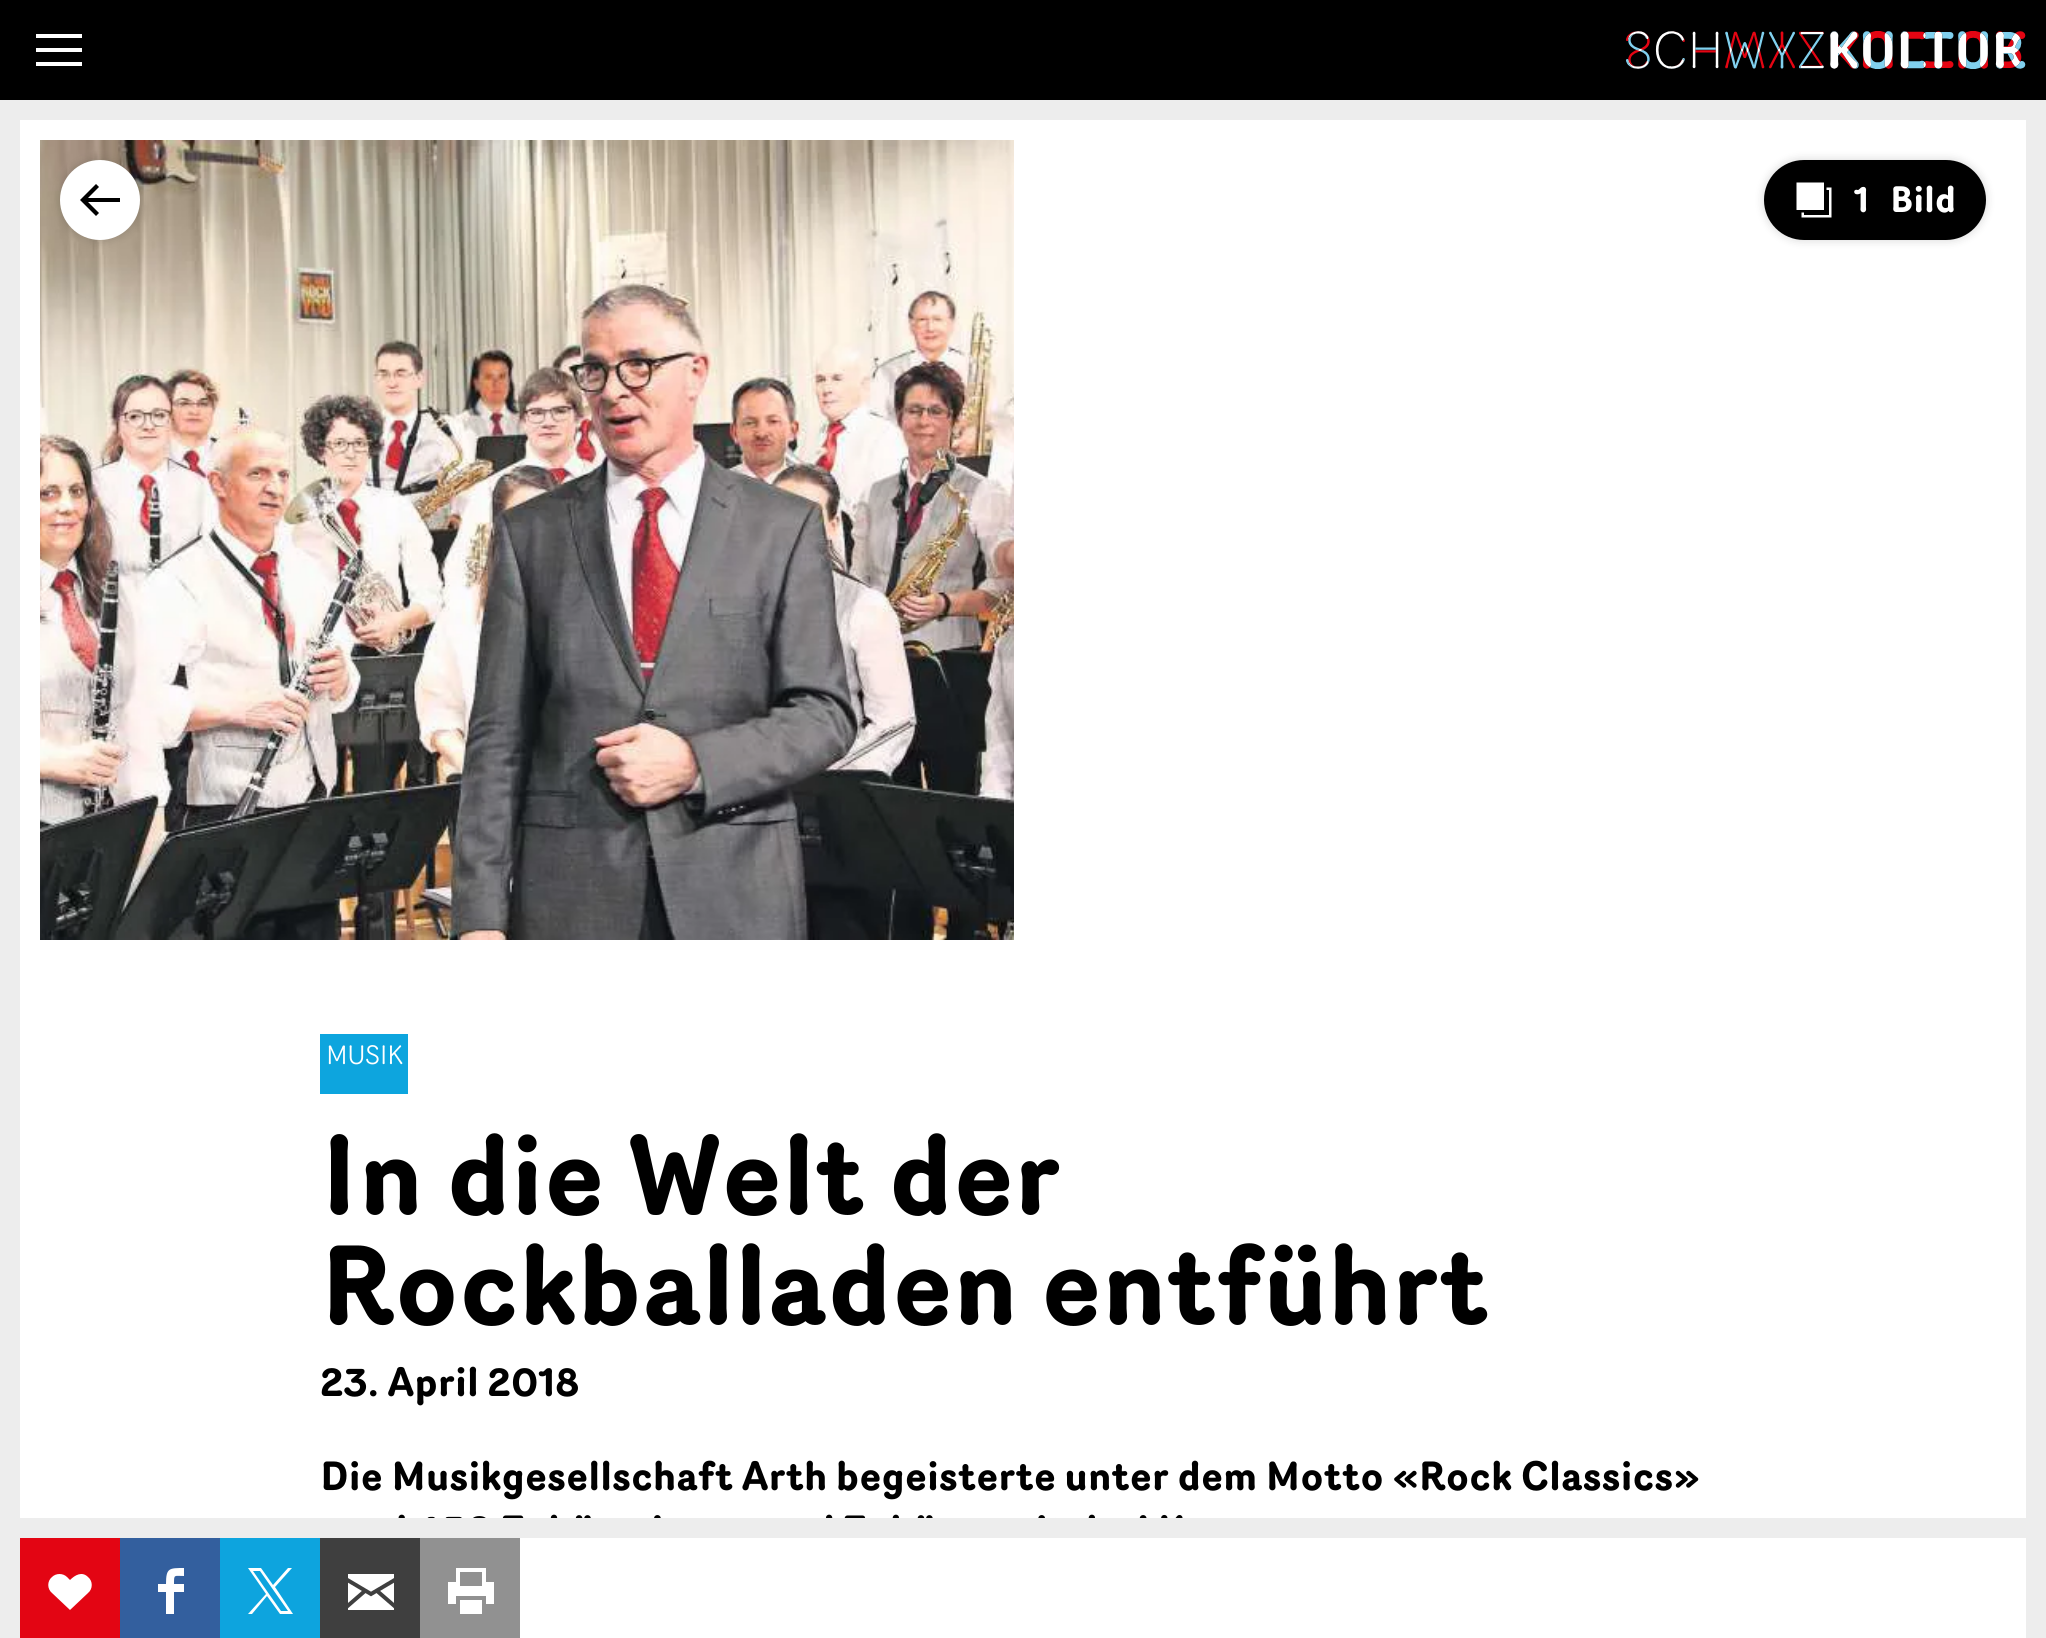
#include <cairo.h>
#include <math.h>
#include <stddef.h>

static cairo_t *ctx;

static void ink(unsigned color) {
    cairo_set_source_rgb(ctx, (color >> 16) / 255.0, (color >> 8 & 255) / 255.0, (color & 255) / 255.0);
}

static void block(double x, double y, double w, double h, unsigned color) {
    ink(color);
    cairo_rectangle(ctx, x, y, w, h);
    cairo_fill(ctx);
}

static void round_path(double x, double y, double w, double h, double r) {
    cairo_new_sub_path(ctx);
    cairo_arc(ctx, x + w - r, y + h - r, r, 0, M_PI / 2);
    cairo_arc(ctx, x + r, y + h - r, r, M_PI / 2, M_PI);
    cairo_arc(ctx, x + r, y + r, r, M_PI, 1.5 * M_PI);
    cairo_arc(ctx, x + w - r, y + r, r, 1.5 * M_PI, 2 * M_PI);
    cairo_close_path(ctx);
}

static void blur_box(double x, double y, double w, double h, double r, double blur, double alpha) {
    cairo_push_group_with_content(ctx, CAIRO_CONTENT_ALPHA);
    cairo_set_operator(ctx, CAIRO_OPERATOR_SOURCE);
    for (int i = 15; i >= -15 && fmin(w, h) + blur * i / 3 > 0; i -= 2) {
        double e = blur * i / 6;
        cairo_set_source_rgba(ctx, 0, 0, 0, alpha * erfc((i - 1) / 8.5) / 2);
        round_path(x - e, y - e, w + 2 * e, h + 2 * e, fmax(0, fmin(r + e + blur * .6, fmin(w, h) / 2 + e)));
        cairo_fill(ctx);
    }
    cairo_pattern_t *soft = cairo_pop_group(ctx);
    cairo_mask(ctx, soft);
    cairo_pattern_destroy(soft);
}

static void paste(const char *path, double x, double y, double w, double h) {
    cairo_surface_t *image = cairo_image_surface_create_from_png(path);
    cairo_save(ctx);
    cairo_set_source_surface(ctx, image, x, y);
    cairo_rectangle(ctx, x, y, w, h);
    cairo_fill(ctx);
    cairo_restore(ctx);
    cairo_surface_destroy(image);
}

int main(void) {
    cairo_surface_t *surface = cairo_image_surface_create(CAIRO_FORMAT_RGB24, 2046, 1638);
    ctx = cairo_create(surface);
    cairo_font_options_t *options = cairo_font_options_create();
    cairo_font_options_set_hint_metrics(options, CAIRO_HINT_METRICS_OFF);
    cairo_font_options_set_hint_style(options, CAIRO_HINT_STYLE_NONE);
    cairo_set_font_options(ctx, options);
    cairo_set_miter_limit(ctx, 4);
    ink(0x000000);
    cairo_paint(ctx);
    block(36, 48, 46, 4, 0xffffff);
    block(36, 34, 46, 4, 0xffffff);
    block(36, 62, 46, 4, 0xffffff);
    paste("pic1.png", 1626, 31, 400, 38);
    block(0, 100, 2046, 1538, 0xededed);
    block(20, 120, 2006, 1398, 0xffffff);
    paste("pic2.png", 40, 140, 974, 800);
    ink(0x000000);
    blur_box(60, 160, 80, 80, 40, 5, 0.16);
    ink(0xffffff);
    cairo_arc(ctx, 100, 200, 40, 0, 2 * M_PI);
    cairo_fill(ctx);
    ink(0x000000);
    cairo_new_path(ctx);
    cairo_move_to(ctx, 96, 184);
    cairo_line_to(ctx, 99, 187);
    cairo_line_to(ctx, 88, 198);
    cairo_line_to(ctx, 120, 198);
    cairo_line_to(ctx, 120, 202);
    cairo_line_to(ctx, 88, 202);
    cairo_line_to(ctx, 99, 213);
    cairo_line_to(ctx, 96, 216);
    cairo_line_to(ctx, 80, 200);
    cairo_close_path(ctx);
    cairo_fill(ctx);
    ink(0x000000);
    blur_box(1764, 160, 222, 80, 40, 5, 0.16);
    ink(0x000000);
    round_path(1764, 160, 222, 80, 40);
    cairo_fill(ctx);
    paste("pic3.png", 1796, 182, 36, 36);
    paste("pic4.png", 1854, 186, 13, 27);
    paste("pic5.png", 1893, 185, 61, 28);
    block(320, 1034, 88, 60, 0x0da5de);
    paste("pic6.png", 328, 1045, 75, 20);
    paste("pic7.png", 330, 1133, 730, 83);
    paste("pic8.png", 329, 1243, 1159, 83);
    paste("pic9.png", 321, 1366, 257, 40);
    paste("pic10.png", 323, 1460, 1376, 40);
    paste("pic11.png", 398, 1514, 785, 4);
    block(520, 1538, 1506, 100, 0xffffff);
    block(20, 1538, 100, 100, 0xe30513);
    ink(0xffffff);
    cairo_new_path(ctx);
    cairo_move_to(ctx, 88, 1577);
    cairo_curve_to(ctx, 82, 1571, 75, 1575, 70, 1580);
    cairo_line_to(ctx, 67, 1577);
    cairo_curve_to(ctx, 63, 1573, 56, 1573, 52, 1577);
    cairo_curve_to(ctx, 47, 1581, 47, 1589, 52, 1593);
    cairo_line_to(ctx, 70, 1610);
    cairo_line_to(ctx, 88, 1593);
    cairo_curve_to(ctx, 93, 1589, 93, 1581, 88, 1577);
    cairo_fill(ctx);
    block(120, 1538, 100, 100, 0x335f9e);
    ink(0xffffff);
    cairo_new_path(ctx);
    cairo_move_to(ctx, 158, 1584);
    cairo_line_to(ctx, 158, 1592);
    cairo_line_to(ctx, 166, 1592);
    cairo_line_to(ctx, 166, 1614);
    cairo_line_to(ctx, 174, 1614);
    cairo_line_to(ctx, 174, 1592);
    cairo_line_to(ctx, 184, 1592);
    cairo_line_to(ctx, 184, 1584);
    cairo_line_to(ctx, 174, 1584);
    cairo_curve_to(ctx, 174, 1574, 174, 1576, 184, 1576);
    cairo_line_to(ctx, 184, 1568);
    cairo_curve_to(ctx, 169, 1568, 166, 1568, 166, 1584);
    cairo_fill(ctx);
    block(220, 1538, 100, 100, 0x0da4de);
    ink(0xffffff);
    cairo_new_path(ctx);
    cairo_move_to(ctx, 275, 1587);
    cairo_line_to(ctx, 292, 1568);
    cairo_line_to(ctx, 288, 1568);
    cairo_line_to(ctx, 273, 1585);
    cairo_line_to(ctx, 261, 1568);
    cairo_line_to(ctx, 248, 1568);
    cairo_line_to(ctx, 266, 1594);
    cairo_line_to(ctx, 248, 1614);
    cairo_line_to(ctx, 252, 1614);
    cairo_line_to(ctx, 267, 1596);
    cairo_line_to(ctx, 280, 1614);
    cairo_line_to(ctx, 293, 1614);
    cairo_close_path(ctx);
    cairo_move_to(ctx, 269, 1594);
    cairo_line_to(ctx, 253, 1571);
    cairo_line_to(ctx, 260, 1571);
    cairo_line_to(ctx, 288, 1611);
    cairo_line_to(ctx, 281, 1611);
    cairo_close_path(ctx);
    cairo_fill(ctx);
    block(320, 1538, 100, 100, 0x3f3f3f);
    paste("pic12.png", 348, 1574, 46, 36);
    block(420, 1538, 100, 100, 0x919191);
    paste("pic13.png", 448, 1568, 46, 46);
    cairo_surface_write_to_png(surface, "screenshot.png");
    cairo_font_options_destroy(options);
    cairo_destroy(ctx);
    cairo_surface_destroy(surface);
    return 0;
}
